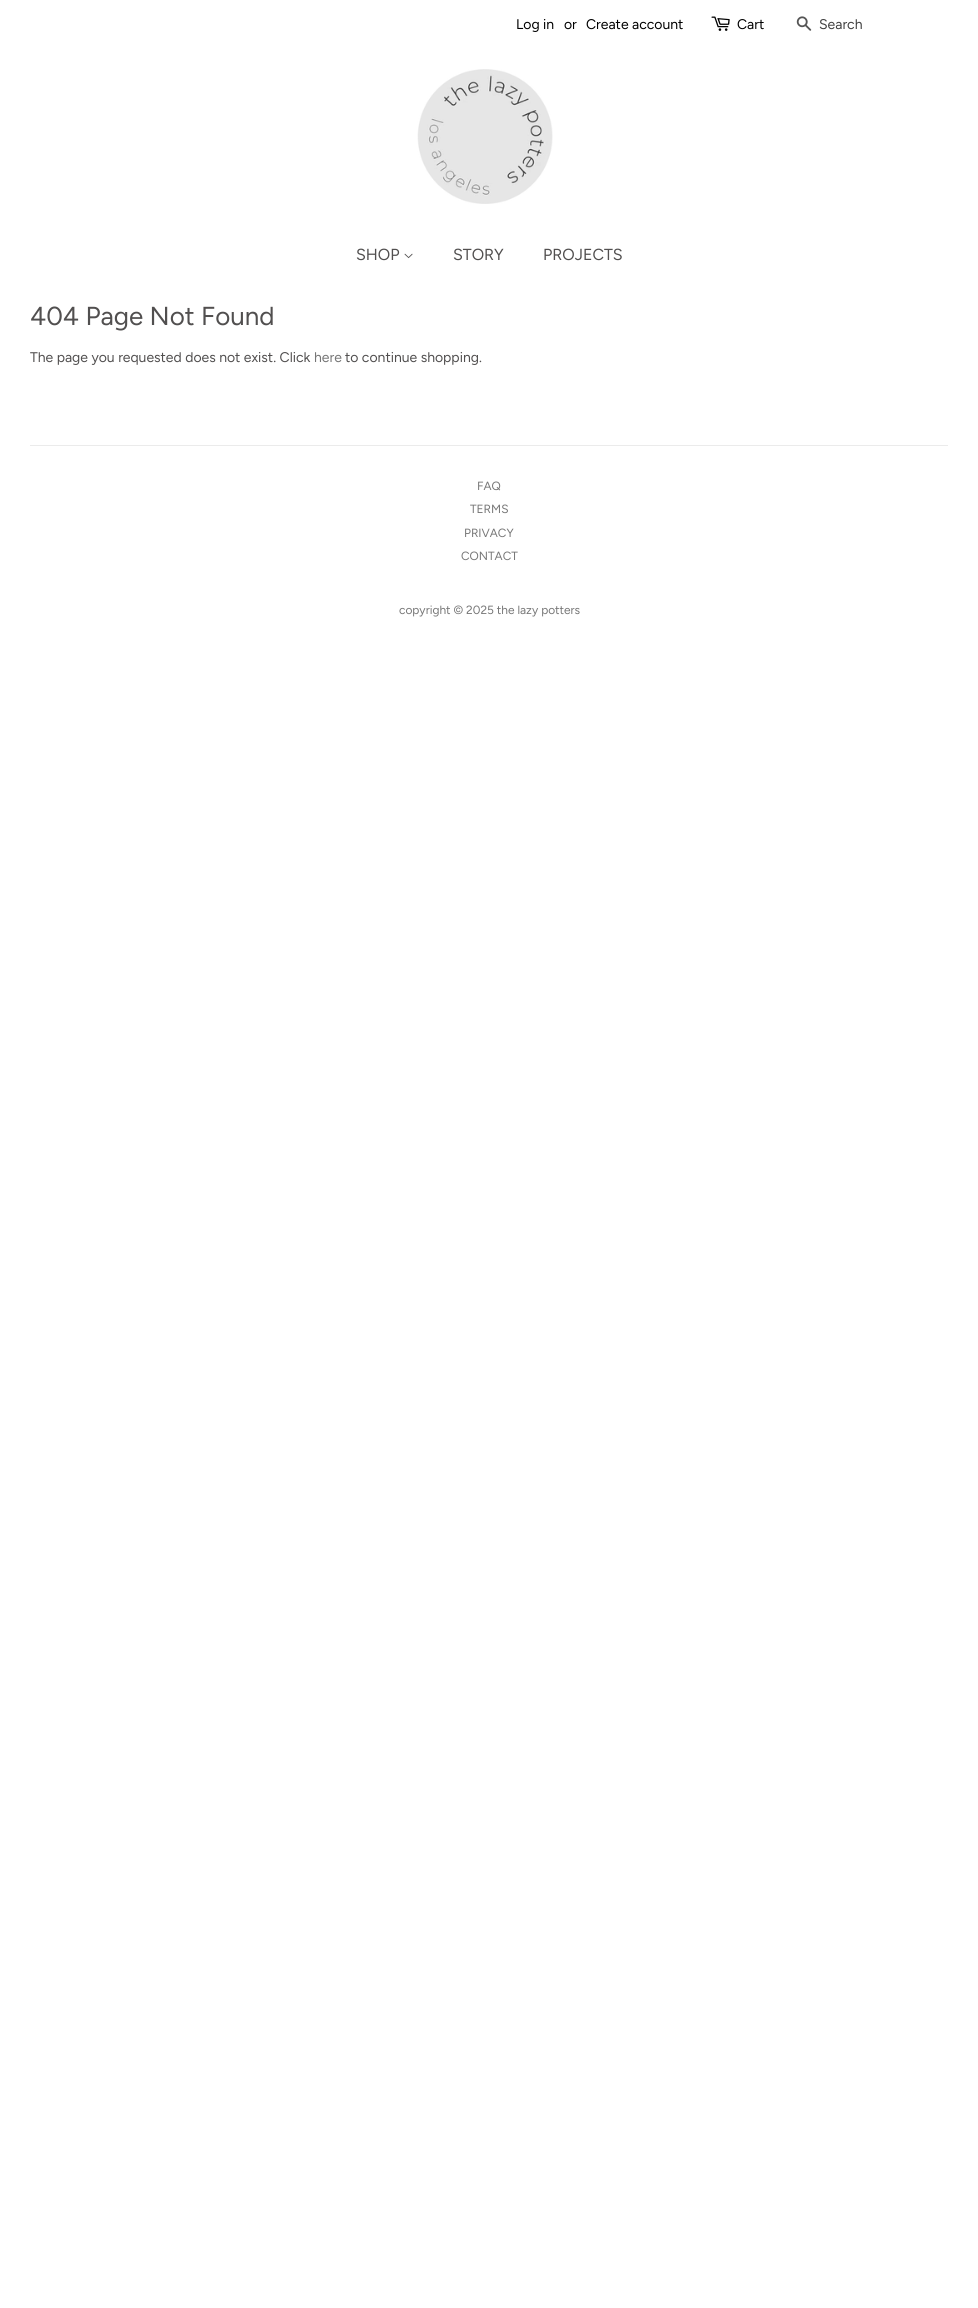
#include <cairo.h>
#include <math.h>
#include <stddef.h>

typedef struct { const char *family; double size; int italic, bold; unsigned color; } style_t;
static cairo_t *ctx;

static void ink(unsigned color) {
    cairo_set_source_rgb(ctx, (color >> 16) / 255.0, (color >> 8 & 255) / 255.0, (color & 255) / 255.0);
}

static void write(double x, double y, const char *s, const style_t *st) {
    cairo_select_font_face(ctx, st->family, st->italic ? CAIRO_FONT_SLANT_ITALIC : CAIRO_FONT_SLANT_NORMAL,
        st->bold ? CAIRO_FONT_WEIGHT_BOLD : CAIRO_FONT_WEIGHT_NORMAL);
    cairo_set_font_size(ctx, st->size);
    ink(st->color);
    cairo_move_to(ctx, x, y);
    cairo_show_text(ctx, s);
}

static void block(double x, double y, double w, double h, unsigned color) {
    ink(color);
    cairo_rectangle(ctx, x, y, w, h);
    cairo_fill(ctx);
}

static void paste(const char *path, double x, double y, double w, double h) {
    cairo_surface_t *image = cairo_image_surface_create_from_png(path);
    cairo_save(ctx);
    cairo_set_source_surface(ctx, image, x, y);
    cairo_rectangle(ctx, x, y, w, h);
    cairo_fill(ctx);
    cairo_restore(ctx);
    cairo_surface_destroy(image);
}

static const style_t s1 = {"Figtree", 14, 0, 0, 0x000000};
static const style_t s2 = {"Figtree", 14, 0, 0, 0x404040};
static const style_t s3 = {"Figtree", 16, 0, 0, 0x514f4f};
static const style_t s4 = {"Figtree", 26, 0, 0, 0x514f4f};
static const style_t s5 = {"Figtree", 14, 0, 0, 0x514f4f};
static const style_t s6 = {"Figtree", 14, 0, 0, 0x767676};
static const style_t s7 = {"Figtree", 11.9, 0, 0, 0x767676};

int main(void) {
    cairo_surface_t *surface = cairo_image_surface_create(CAIRO_FORMAT_RGB24, 978, 2308);
    ctx = cairo_create(surface);
    cairo_font_options_t *options = cairo_font_options_create();
    cairo_font_options_set_hint_metrics(options, CAIRO_HINT_METRICS_OFF);
    cairo_font_options_set_hint_style(options, CAIRO_HINT_STYLE_NONE);
    cairo_set_font_options(ctx, options);
    cairo_set_miter_limit(ctx, 4);
    ink(0xffffff);
    cairo_paint(ctx);
    write(516, 29, "Log in", &s1);
    write(564, 29, "or", &s1);
    write(586, 29, "Create account", &s1);
    paste("pic1.png", 711, 16, 19, 15);
    write(737, 29, "Cart", &s1);
    paste("pic2.png", 796, 16, 16, 15);
    write(819, 29, "Search", &s2);
    paste("pic3.png", 417, 69, 136, 135);
    write(356, 260, "SHOP", &s3);
    paste("pic4.png", 404, 253, 9, 6);
    write(453, 260, "STORY", &s3);
    write(543, 260, "PROJECTS", &s3);
    write(30, 325, "404 Page Not Found", &s4);
    write(30, 362, "The page you requested does not exist. Click", &s5);
    write(314, 362, "here", &s6);
    write(345, 362, "to continue shopping.", &s5);
    block(30, 445, 918, 1, 0xebebeb);
    write(477, 490, "FAQ", &s7);
    write(470, 513, "TERMS", &s7);
    write(464, 537, "PRIVACY", &s7);
    write(461, 560, "CONTACT", &s7);
    write(399, 614, "copyright © 2025 the lazy potters", &s7);
    cairo_surface_write_to_png(surface, "screenshot.png");
    cairo_font_options_destroy(options);
    cairo_destroy(ctx);
    cairo_surface_destroy(surface);
    return 0;
}
